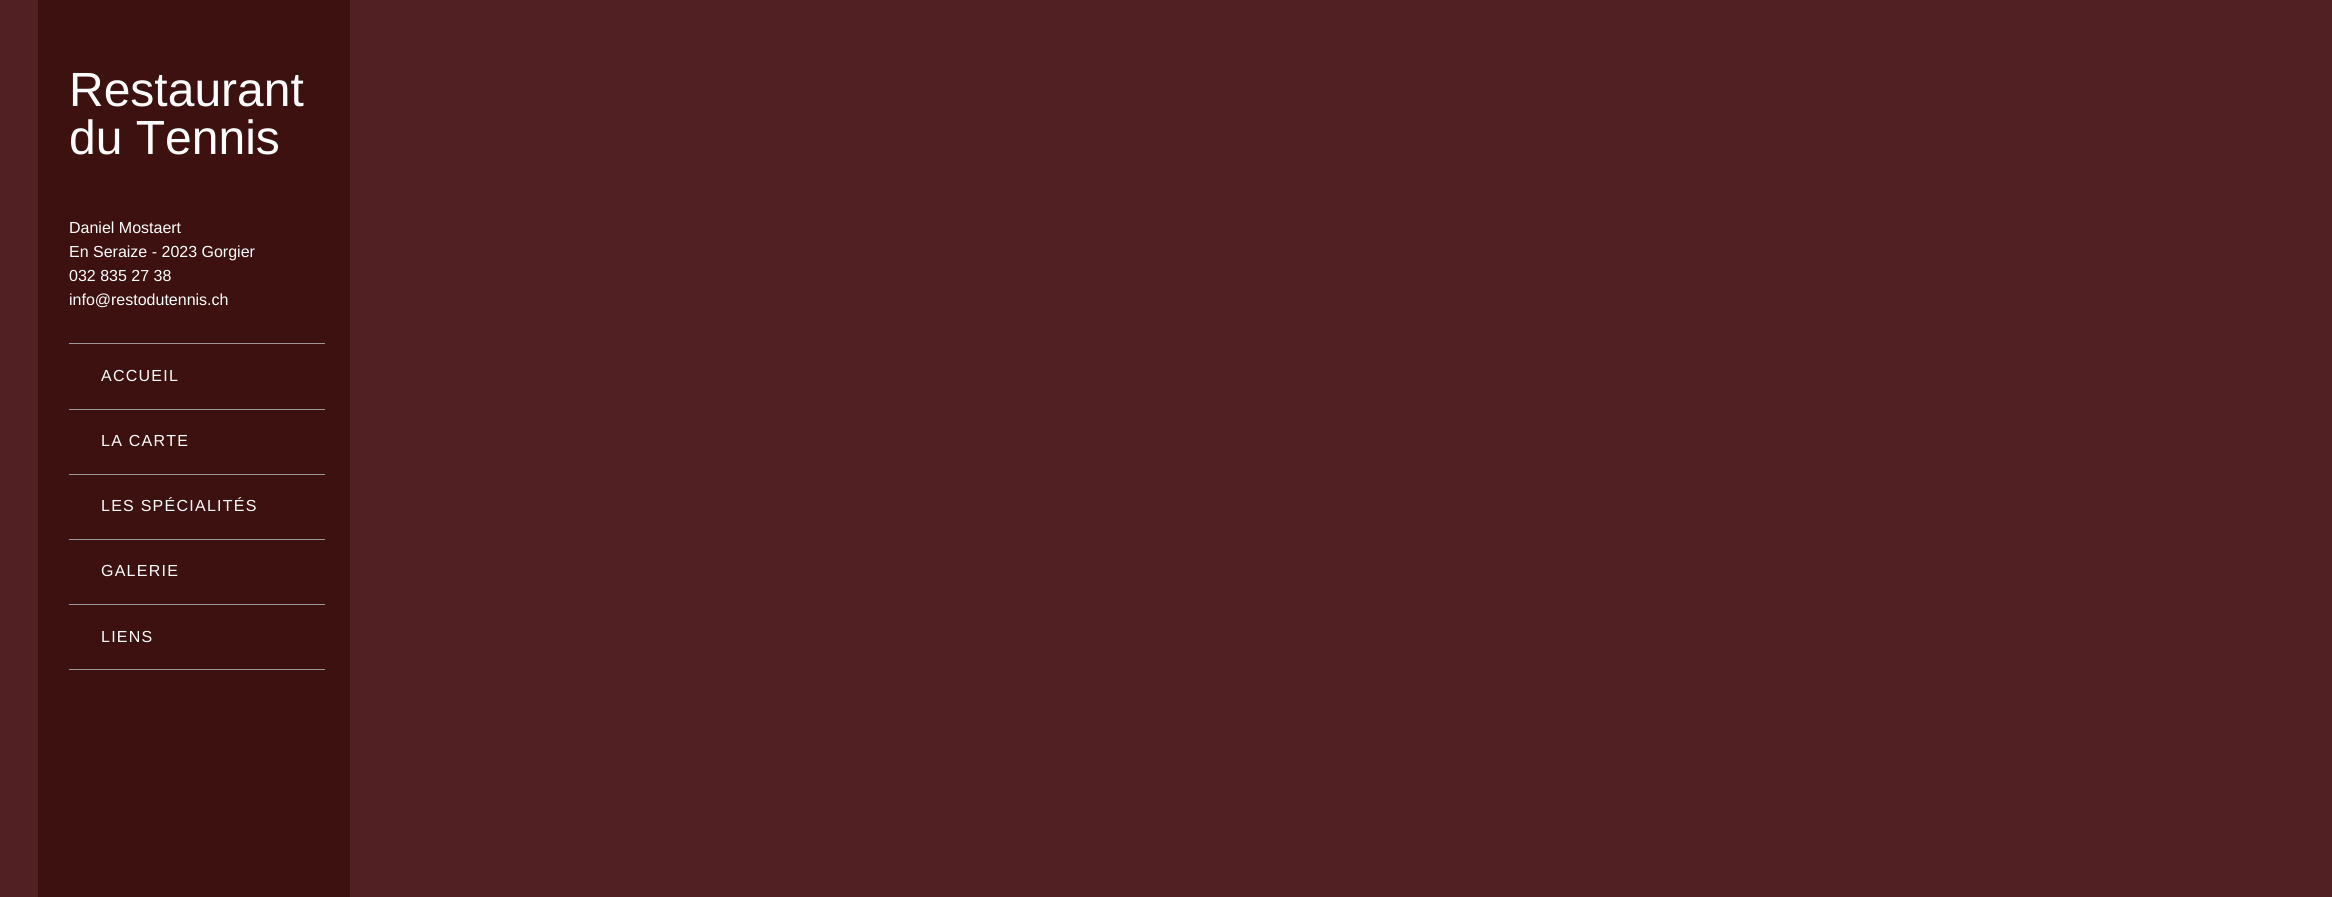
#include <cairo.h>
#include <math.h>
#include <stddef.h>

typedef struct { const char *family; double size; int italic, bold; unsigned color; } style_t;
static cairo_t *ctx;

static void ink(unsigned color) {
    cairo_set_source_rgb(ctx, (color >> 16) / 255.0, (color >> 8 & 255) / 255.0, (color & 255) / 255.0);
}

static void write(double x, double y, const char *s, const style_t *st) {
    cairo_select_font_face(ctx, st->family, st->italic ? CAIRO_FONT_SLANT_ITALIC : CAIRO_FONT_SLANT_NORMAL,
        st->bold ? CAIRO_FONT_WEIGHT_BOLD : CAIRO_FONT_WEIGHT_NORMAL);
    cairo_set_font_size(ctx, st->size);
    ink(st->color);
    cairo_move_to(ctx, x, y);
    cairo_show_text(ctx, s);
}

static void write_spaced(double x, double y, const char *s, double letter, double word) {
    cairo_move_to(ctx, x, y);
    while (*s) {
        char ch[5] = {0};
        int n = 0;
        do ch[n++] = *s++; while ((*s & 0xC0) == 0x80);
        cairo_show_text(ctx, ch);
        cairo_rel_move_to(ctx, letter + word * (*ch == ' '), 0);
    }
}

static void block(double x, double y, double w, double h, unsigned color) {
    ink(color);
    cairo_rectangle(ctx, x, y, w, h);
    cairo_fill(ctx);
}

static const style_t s1 = {"Liberation Sans", 48, 0, 0, 0xffffff};
static const style_t s2 = {"Liberation Sans", 16, 0, 0, 0xffffff};

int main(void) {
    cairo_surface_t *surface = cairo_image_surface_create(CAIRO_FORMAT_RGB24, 2332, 897);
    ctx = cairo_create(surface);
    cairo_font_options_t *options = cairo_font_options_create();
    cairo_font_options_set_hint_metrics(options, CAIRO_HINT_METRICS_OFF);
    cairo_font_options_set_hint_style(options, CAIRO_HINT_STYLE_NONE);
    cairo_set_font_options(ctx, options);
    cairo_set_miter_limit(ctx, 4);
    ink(0x502023);
    cairo_paint(ctx);
    block(38, 0, 312, 897, 0x3e1111);
    write(69, 106, "Restaurant", &s1);
    write(69, 154, "du Tennis", &s1);
    write(69, 233, "Daniel Mostaert", &s2);
    write(69, 257, "En Seraize - 2023 Gorgier", &s2);
    write(69, 281, "032 835 27 38", &s2);
    write(69, 305, "info@restodutennis.ch", &s2);
    block(69, 669, 256, 1, 0x999999);
    block(69, 343, 256, 1, 0x999999);
    ink(0xffffff);
    write_spaced(101, 381, "ACCUEIL", 1.25, 0);
    block(69, 409, 256, 1, 0x999999);
    ink(0xffffff);
    write_spaced(101, 446, "LA CARTE", 1.25, 0);
    block(69, 474, 256, 1, 0x999999);
    ink(0xffffff);
    write_spaced(101, 511, "LES SPÉCIALITÉS", 1.25, 0);
    block(69, 539, 256, 1, 0x999999);
    ink(0xffffff);
    write_spaced(101, 576, "GALERIE", 1.25, 0);
    block(69, 604, 256, 1, 0x999999);
    ink(0xffffff);
    write_spaced(101, 642, "LIENS", 1.25, 0);
    cairo_surface_write_to_png(surface, "screenshot.png");
    cairo_font_options_destroy(options);
    cairo_destroy(ctx);
    cairo_surface_destroy(surface);
    return 0;
}
